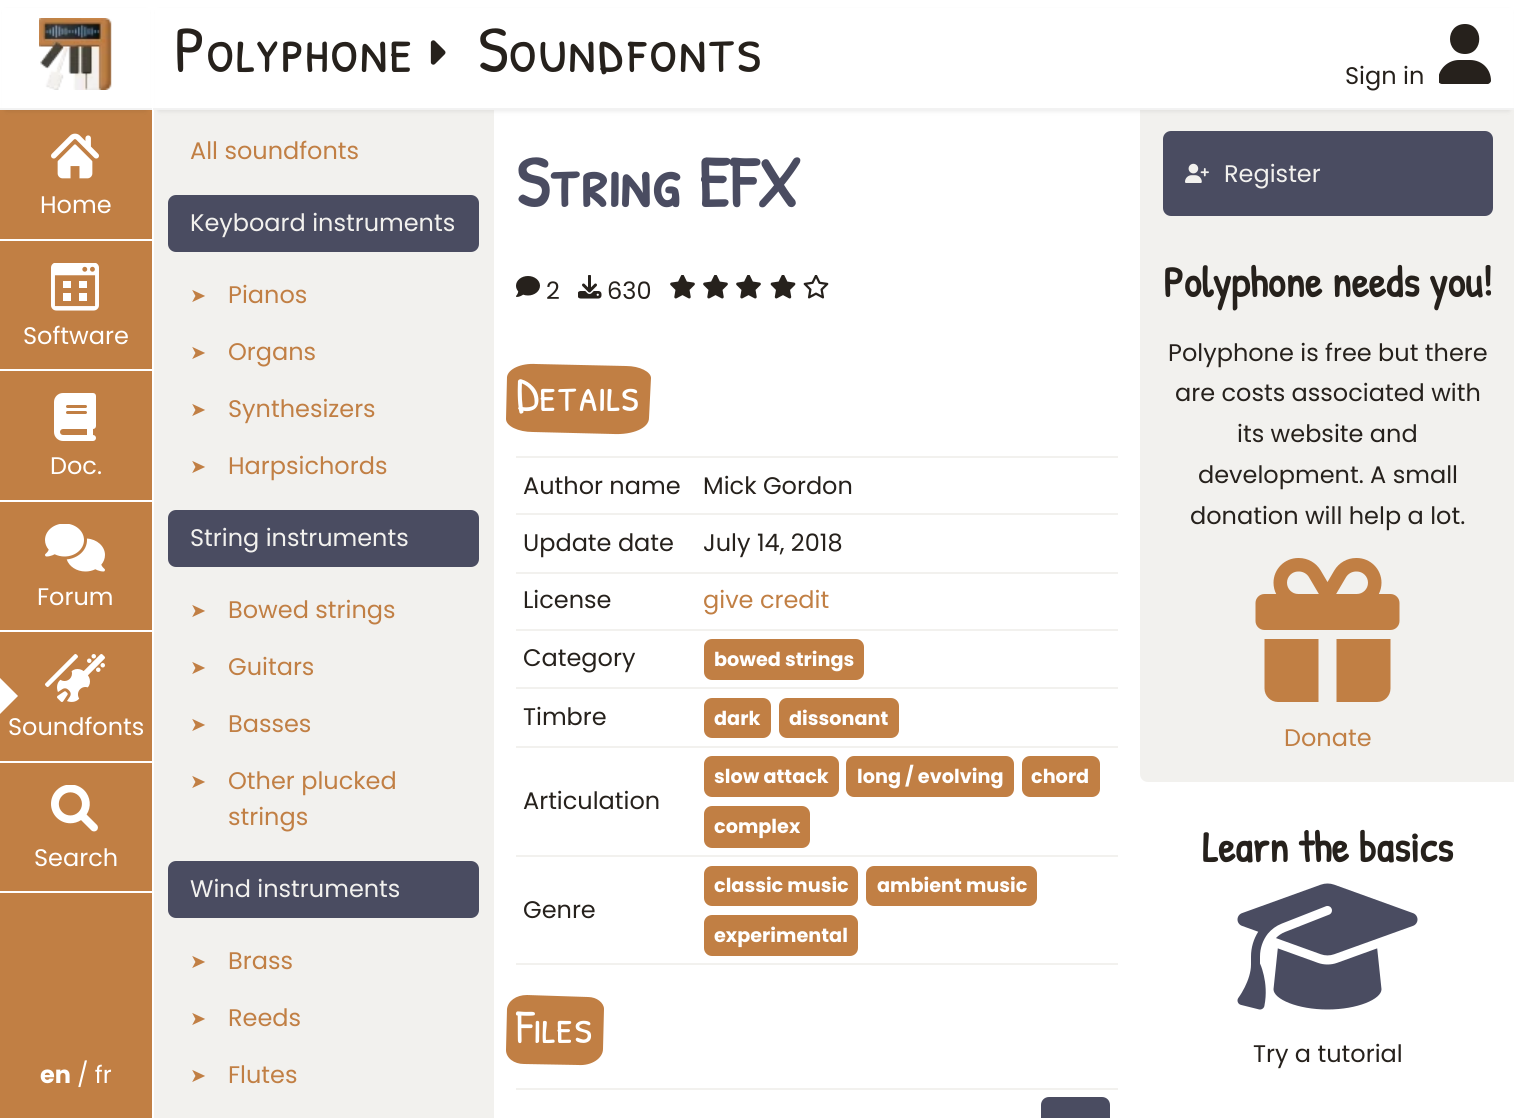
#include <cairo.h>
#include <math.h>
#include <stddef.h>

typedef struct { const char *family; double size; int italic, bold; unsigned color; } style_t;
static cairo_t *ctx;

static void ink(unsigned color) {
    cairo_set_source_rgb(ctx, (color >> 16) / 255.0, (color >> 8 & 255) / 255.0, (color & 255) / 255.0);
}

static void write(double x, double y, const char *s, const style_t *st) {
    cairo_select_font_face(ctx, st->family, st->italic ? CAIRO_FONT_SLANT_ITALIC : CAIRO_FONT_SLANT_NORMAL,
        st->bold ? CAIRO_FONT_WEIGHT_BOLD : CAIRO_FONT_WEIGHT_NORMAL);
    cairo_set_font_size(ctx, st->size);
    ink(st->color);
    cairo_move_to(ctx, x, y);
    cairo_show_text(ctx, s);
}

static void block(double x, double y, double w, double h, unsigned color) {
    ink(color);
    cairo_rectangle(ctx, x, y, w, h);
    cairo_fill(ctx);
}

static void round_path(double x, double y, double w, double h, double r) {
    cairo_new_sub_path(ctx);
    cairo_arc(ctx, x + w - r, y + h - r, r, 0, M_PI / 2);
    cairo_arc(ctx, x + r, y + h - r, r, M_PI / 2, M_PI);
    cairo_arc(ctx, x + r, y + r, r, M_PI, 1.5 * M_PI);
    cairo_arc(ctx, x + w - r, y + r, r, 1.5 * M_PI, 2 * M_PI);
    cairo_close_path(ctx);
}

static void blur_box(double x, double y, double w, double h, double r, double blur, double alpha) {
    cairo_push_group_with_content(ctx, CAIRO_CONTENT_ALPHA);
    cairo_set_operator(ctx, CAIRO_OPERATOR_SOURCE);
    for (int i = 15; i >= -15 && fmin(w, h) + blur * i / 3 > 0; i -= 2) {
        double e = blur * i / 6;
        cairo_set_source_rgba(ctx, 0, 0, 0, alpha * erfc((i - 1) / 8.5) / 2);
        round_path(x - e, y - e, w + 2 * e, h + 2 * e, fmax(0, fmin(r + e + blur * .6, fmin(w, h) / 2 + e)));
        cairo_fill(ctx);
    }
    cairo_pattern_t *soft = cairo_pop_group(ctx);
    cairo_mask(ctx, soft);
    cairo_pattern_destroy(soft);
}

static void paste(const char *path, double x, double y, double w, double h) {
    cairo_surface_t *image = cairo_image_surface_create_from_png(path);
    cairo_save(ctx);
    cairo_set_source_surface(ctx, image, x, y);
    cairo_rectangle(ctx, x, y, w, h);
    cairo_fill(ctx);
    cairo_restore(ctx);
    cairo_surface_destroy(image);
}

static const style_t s1 = {"Poppins", 24, 0, 0, 0xffffff};
static const style_t s2 = {"Poppins", 24, 0, 1, 0xffffff};
static const style_t s3 = {"Patrick Hand SC", 66, 0, 0, 0x26211c};
static const style_t s4 = {"Poppins", 24, 0, 0, 0x26211c};
static const style_t s5 = {"Poppins", 24, 0, 0, 0xc17f44};
static const style_t s6 = {"Poppins", 24, 0, 0, 0xf2f1ee};
static const style_t s7 = {"DejaVu Sans", 19.25, 0, 0, 0xc17f44};
static const style_t s8 = {"Patrick Hand SC", 72, 0, 1, 0x4a4c61};
static const style_t s9 = {"Patrick Hand SC", 48, 0, 0, 0xffffff};
static const style_t s10 = {"Poppins", 19.25, 0, 1, 0xffffff};
static const style_t s11 = {"Patrick Hand", 43.25, 0, 1, 0x26211c};

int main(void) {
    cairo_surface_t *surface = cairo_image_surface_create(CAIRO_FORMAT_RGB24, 1514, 1118);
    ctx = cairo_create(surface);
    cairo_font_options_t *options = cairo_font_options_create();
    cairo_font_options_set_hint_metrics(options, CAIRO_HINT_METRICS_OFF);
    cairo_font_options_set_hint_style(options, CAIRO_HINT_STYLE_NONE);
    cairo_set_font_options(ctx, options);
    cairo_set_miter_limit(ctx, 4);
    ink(0xffffff);
    cairo_paint(ctx);
    block(0, 110, 152, 1008, 0xc17f44);
    block(154, 110, 340, 1008, 0xf2f1ee);
    ink(0x000000);
    blur_box(6, 12, 140, 98, 0, 3, 0.12);
    block(2, 8, 148, 100, 0xffffff);
    block(0, 108, 152, 2, 0xf2f2f2);
    paste("pic1.png", 39, 18, 73, 72);
    block(0, 239, 152, 2, 0xffffff);
    paste("pic2.png", 51, 133, 48, 46);
    write(40, 213, "Home", &s1);
    block(0, 369, 152, 2, 0xffffff);
    paste("pic3.png", 51, 263, 48, 48);
    write(23, 344, "Software", &s1);
    block(0, 500, 152, 2, 0xffffff);
    paste("pic4.png", 54, 393, 42, 48);
    write(50, 474, "Doc.", &s1);
    block(0, 630, 152, 2, 0xffffff);
    paste("pic5.png", 45, 524, 60, 48);
    write(37, 605, "Forum", &s1);
    block(0, 761, 152, 2, 0xffffff);
    cairo_new_path(ctx);
    cairo_move_to(ctx, 0, 714);
    cairo_line_to(ctx, 0, 678);
    cairo_line_to(ctx, 18, 696);
    cairo_close_path(ctx);
    cairo_fill(ctx);
    paste("pic6.png", 45, 654, 60, 48);
    write(8, 735, "Soundfonts", &s1);
    block(0, 891, 152, 2, 0xffffff);
    paste("pic7.png", 51, 785, 47, 47);
    write(34, 866, "Search", &s1);
    write(40, 1083, "en", &s2);
    write(77, 1083, "/ fr", &s1);
    block(1140, 110, 374, 129, 0xf2f1ee);
    ink(0x000000);
    blur_box(159, 12, 1350, 98, 0, 3, 0.12);
    block(155, 8, 1358, 100, 0xffffff);
    block(153, 108, 1361, 2, 0xf2f2f2);
    write(174, 72, "Polyphone", &s3);
    paste("pic8.png", 430, 40, 16, 25);
    write(478, 72, "Soundfonts", &s3);
    write(1345, 84, "Sign in", &s4);
    cairo_save(ctx);
    cairo_rectangle(ctx, 1439, 24, 52, 60);
    cairo_clip(ctx);
    cairo_new_path(ctx);
    cairo_move_to(ctx, 1465, 54);
    cairo_curve_to(ctx, 1484, 54, 1484, 24, 1465, 24);
    cairo_curve_to(ctx, 1445, 24, 1445, 54, 1465, 54);
    cairo_close_path(ctx);
    cairo_move_to(ctx, 1459, 60);
    cairo_curve_to(ctx, 1448, 60, 1438, 69, 1438, 81);
    cairo_curve_to(ctx, 1438, 82, 1440, 84, 1442, 84);
    cairo_line_to(ctx, 1488, 84);
    cairo_curve_to(ctx, 1489, 84, 1491, 82, 1491, 81);
    cairo_curve_to(ctx, 1491, 69, 1482, 60, 1470, 60);
    cairo_close_path(ctx);
    cairo_fill(ctx);
    cairo_restore(ctx);
    write(190, 159, "All soundfonts", &s5);
    ink(0x4a4c61);
    round_path(168, 195, 311, 57, 8);
    cairo_fill(ctx);
    write(190, 231, "Keyboard instruments", &s6);
    write(190, 302, "➤", &s7);
    write(228, 303, "Pianos", &s5);
    write(190, 359, "➤", &s7);
    write(228, 360, "Organs", &s5);
    write(190, 416, "➤", &s7);
    write(228, 417, "Synthesizers", &s5);
    write(190, 473, "➤", &s7);
    write(228, 474, "Harpsichords", &s5);
    ink(0x4a4c61);
    round_path(168, 510, 311, 57, 8);
    cairo_fill(ctx);
    write(190, 546, "String instruments", &s6);
    write(190, 617, "➤", &s7);
    write(228, 618, "Bowed strings", &s5);
    write(190, 674, "➤", &s7);
    write(228, 675, "Guitars", &s5);
    write(190, 731, "➤", &s7);
    write(228, 732, "Basses", &s5);
    write(190, 788, "➤", &s7);
    write(228, 789, "Other plucked", &s5);
    write(228, 825, "strings", &s5);
    ink(0x4a4c61);
    round_path(168, 861, 311, 57, 8);
    cairo_fill(ctx);
    write(190, 897, "Wind instruments", &s6);
    write(190, 968, "➤", &s7);
    write(228, 969, "Brass", &s5);
    write(190, 1025, "➤", &s7);
    write(228, 1026, "Reeds", &s5);
    write(190, 1082, "➤", &s7);
    write(228, 1083, "Flutes", &s5);
    write(516, 207, "String EFX", &s8);
    paste("pic9.png", 516, 276, 24, 21);
    write(546, 299, "2", &s4);
    paste("pic10.png", 578, 275, 24, 24);
    write(607, 299, "630", &s4);
    paste("pic11.png", 670, 275, 25, 24);
    paste("pic11.png", 703, 275, 25, 24);
    paste("pic11.png", 736, 275, 25, 24);
    paste("pic12.png", 770, 275, 26, 24);
    paste("pic13.png", 803, 275, 26, 24);
    ink(0xc17f44);
    cairo_new_path(ctx);
    cairo_move_to(ctx, 536, 364);
    cairo_line_to(ctx, 626, 366);
    cairo_curve_to(ctx, 640, 366, 651, 372, 651, 378);
    cairo_line_to(ctx, 649, 418);
    cairo_curve_to(ctx, 649, 428, 633, 435, 613, 434);
    cairo_line_to(ctx, 533, 432);
    cairo_curve_to(ctx, 518, 432, 506, 426, 506, 419);
    cairo_line_to(ctx, 507, 377);
    cairo_curve_to(ctx, 508, 369, 521, 363, 536, 364);
    cairo_close_path(ctx);
    cairo_fill(ctx);
    write(516, 411, "Details", &s9);
    block(516, 963, 602, 2, 0xf2f1ee);
    block(516, 456, 602, 2, 0xf2f1ee);
    write(523, 494, "Author name", &s4);
    write(703, 494, "Mick Gordon", &s4);
    block(516, 513, 602, 2, 0xf2f1ee);
    write(523, 551, "Update date", &s4);
    write(703, 551, "July 14, 2018", &s4);
    block(516, 572, 602, 2, 0xf2f1ee);
    write(523, 608, "License", &s4);
    write(703, 608, "give credit", &s5);
    block(516, 629, 602, 2, 0xf2f1ee);
    write(523, 666, "Category", &s4);
    ink(0xc17f44);
    round_path(704, 639, 160, 41, 8);
    cairo_fill(ctx);
    write(714, 666, "bowed strings", &s10);
    block(516, 687, 602, 2, 0xf2f1ee);
    write(523, 725, "Timbre", &s4);
    ink(0xc17f44);
    round_path(704, 698, 67, 40, 8);
    cairo_fill(ctx);
    write(714, 725, "dark", &s10);
    ink(0xc17f44);
    round_path(779, 698, 120, 40, 8);
    cairo_fill(ctx);
    write(789, 725, "dissonant", &s10);
    block(516, 746, 602, 2, 0xf2f1ee);
    write(523, 809, "Articulation", &s4);
    ink(0xc17f44);
    round_path(704, 756, 135, 41, 8);
    cairo_fill(ctx);
    write(714, 783, "slow attack", &s10);
    ink(0xc17f44);
    round_path(846, 756, 168, 41, 8);
    cairo_fill(ctx);
    write(857, 783, "long / evolving", &s10);
    ink(0xc17f44);
    round_path(1022, 756, 78, 41, 8);
    cairo_fill(ctx);
    write(1031, 783, "chord", &s10);
    ink(0xc17f44);
    round_path(704, 806, 106, 42, 8);
    cairo_fill(ctx);
    write(714, 833, "complex", &s10);
    block(516, 855, 602, 2, 0xf2f1ee);
    write(523, 918, "Genre", &s4);
    ink(0xc17f44);
    round_path(704, 866, 154, 40, 8);
    cairo_fill(ctx);
    write(714, 892, "classic music", &s10);
    ink(0xc17f44);
    round_path(866, 866, 171, 40, 8);
    cairo_fill(ctx);
    write(877, 892, "ambient music", &s10);
    ink(0xc17f44);
    round_path(704, 915, 154, 41, 8);
    cairo_fill(ctx);
    write(714, 942, "experimental", &s10);
    ink(0xc17f44);
    cairo_new_path(ctx);
    cairo_move_to(ctx, 527, 995);
    cairo_line_to(ctx, 588, 997);
    cairo_curve_to(ctx, 597, 997, 604, 1003, 604, 1009);
    cairo_line_to(ctx, 603, 1049);
    cairo_curve_to(ctx, 603, 1058, 592, 1066, 578, 1065);
    cairo_line_to(ctx, 524, 1064);
    cairo_curve_to(ctx, 514, 1064, 506, 1058, 506, 1050);
    cairo_line_to(ctx, 507, 1009);
    cairo_curve_to(ctx, 508, 1001, 516, 995, 527, 995);
    cairo_close_path(ctx);
    cairo_fill(ctx);
    write(516, 1043, "Files", &s9);
    block(516, 1088, 602, 2, 0xf2f1ee);
    ink(0x4a4c61);
    cairo_new_path(ctx);
    cairo_move_to(ctx, 1049, 1097);
    cairo_line_to(ctx, 1102, 1097);
    cairo_curve_to(ctx, 1106.5, 1097, 1110, 1100.5, 1110, 1105);
    cairo_line_to(ctx, 1110, 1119);
    cairo_line_to(ctx, 1041, 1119);
    cairo_line_to(ctx, 1041, 1105);
    cairo_curve_to(ctx, 1041, 1100.5, 1044.5, 1097, 1049, 1097);
    cairo_close_path(ctx);
    cairo_fill(ctx);
    round_path(1163, 131, 330, 85, 8);
    cairo_fill(ctx);
    paste("pic14.png", 1185, 163, 24, 20);
    write(1224, 182, "Register", &s6);
    cairo_new_path(ctx);
    cairo_move_to(ctx, 1140, 239);
    cairo_line_to(ctx, 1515, 239);
    cairo_line_to(ctx, 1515, 782);
    cairo_line_to(ctx, 1148, 782);
    cairo_curve_to(ctx, 1143.5, 782, 1140, 778.5, 1140, 774);
    cairo_close_path(ctx);
    cairo_fill(ctx);
    write(1163, 297, "Polyphone needs you!", &s11);
    write(1168, 361, "Polyphone is free but there", &s4);
    write(1175, 401, "are costs associated with", &s4);
    write(1237, 442, "its website and", &s4);
    write(1198, 483, "development. A small", &s4);
    write(1190, 524, "donation will help a lot.", &s4);
    paste("pic15.png", 1255, 558, 145, 144);
    write(1284, 746, "Donate", &s5);
    write(1202, 862, "Learn the basics", &s11);
    paste("pic16.png", 1237, 883, 181, 127);
    write(1253, 1062, "Try a tutorial", &s4);
    cairo_surface_write_to_png(surface, "screenshot.png");
    cairo_font_options_destroy(options);
    cairo_destroy(ctx);
    cairo_surface_destroy(surface);
    return 0;
}
